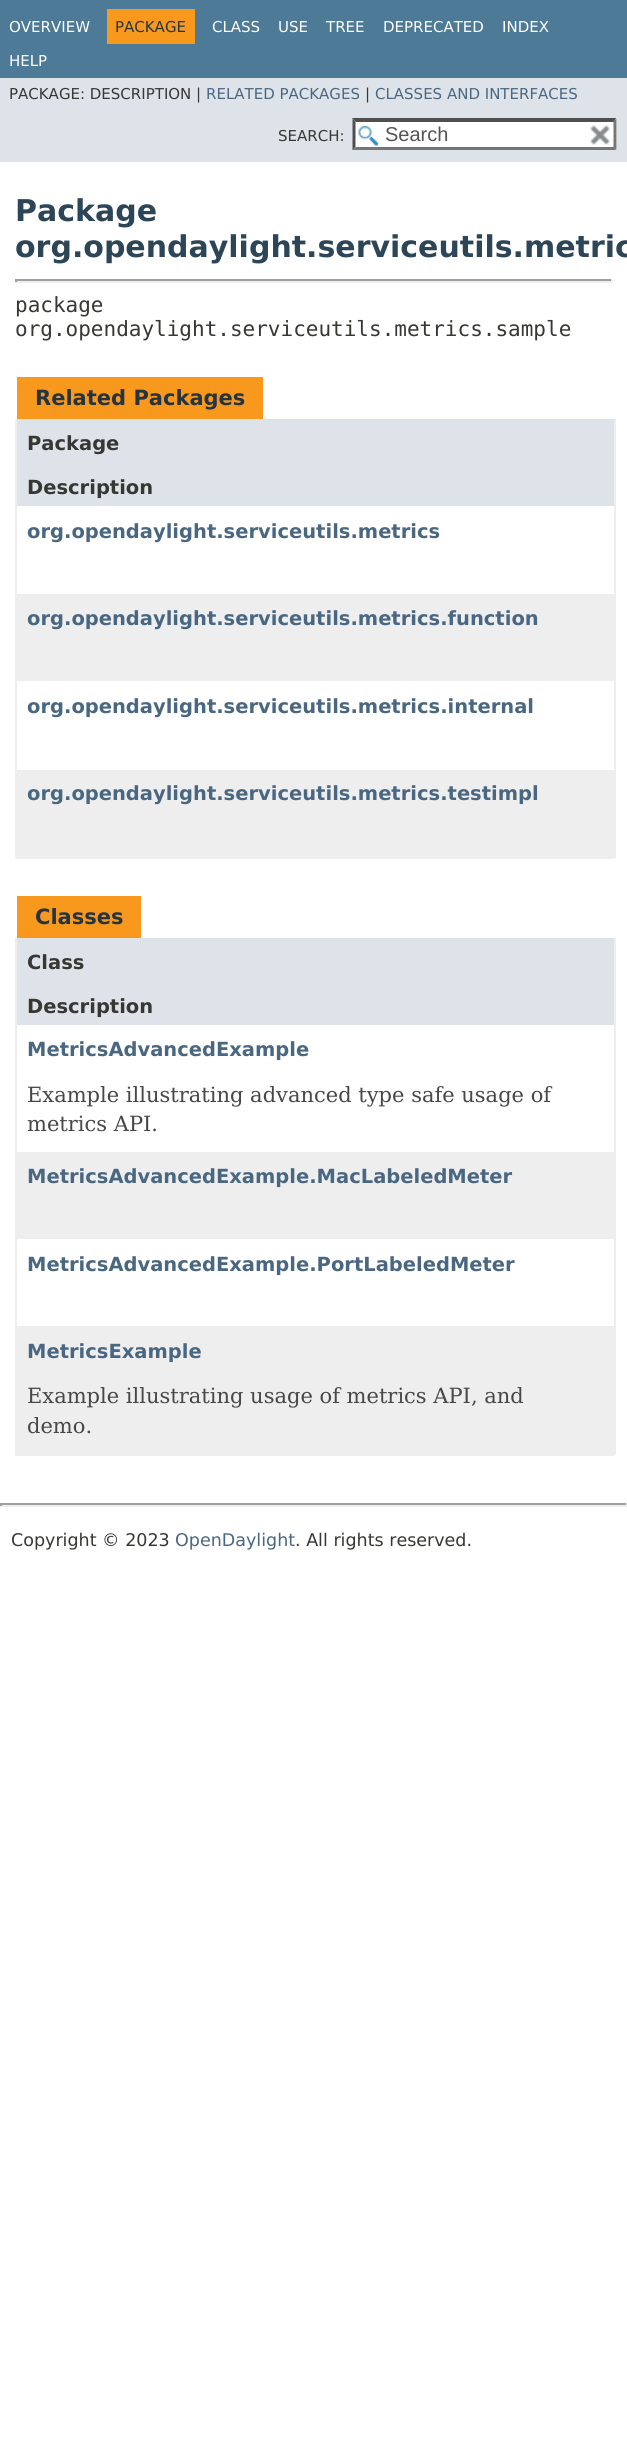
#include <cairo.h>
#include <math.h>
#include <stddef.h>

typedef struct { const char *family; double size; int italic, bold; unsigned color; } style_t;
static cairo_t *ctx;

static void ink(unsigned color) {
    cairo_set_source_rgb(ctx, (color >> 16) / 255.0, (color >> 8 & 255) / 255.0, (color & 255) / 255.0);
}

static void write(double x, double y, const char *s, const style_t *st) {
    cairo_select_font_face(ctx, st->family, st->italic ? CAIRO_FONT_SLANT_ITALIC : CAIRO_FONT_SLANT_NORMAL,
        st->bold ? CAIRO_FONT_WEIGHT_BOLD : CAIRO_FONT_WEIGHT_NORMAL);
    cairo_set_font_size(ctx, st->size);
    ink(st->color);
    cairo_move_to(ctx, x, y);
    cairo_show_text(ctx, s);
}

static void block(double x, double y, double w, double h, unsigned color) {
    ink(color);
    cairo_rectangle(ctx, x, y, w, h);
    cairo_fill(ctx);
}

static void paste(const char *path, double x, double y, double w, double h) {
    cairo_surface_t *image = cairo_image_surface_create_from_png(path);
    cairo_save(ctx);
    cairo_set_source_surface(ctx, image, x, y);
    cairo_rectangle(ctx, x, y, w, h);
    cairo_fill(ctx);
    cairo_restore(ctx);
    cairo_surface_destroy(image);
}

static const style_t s1 = {"DejaVu Sans", 15, 0, 0, 0xffffff};
static const style_t s2 = {"DejaVu Sans", 15, 0, 0, 0x253441};
static const style_t s3 = {"DejaVu Sans", 15, 0, 0, 0x353833};
static const style_t s4 = {"DejaVu Sans", 15, 0, 0, 0x4a6782};
static const style_t s5 = {"Liberation Sans", 20, 0, 0, 0x545454};
static const style_t s6 = {"DejaVu Sans", 30, 0, 1, 0x2c4557};
static const style_t s7 = {"DejaVu Sans Mono", 21, 0, 0, 0x353833};
static const style_t s8 = {"DejaVu Sans", 21, 0, 1, 0x253441};
static const style_t s9 = {"DejaVu Sans", 19.5, 0, 1, 0x353833};
static const style_t s10 = {"DejaVu Sans", 19.5, 0, 1, 0x4a6782};
static const style_t s11 = {"DejaVu Serif", 21, 0, 0, 0x474747};
static const style_t s12 = {"DejaVu Sans", 17.5, 0, 0, 0x353833};
static const style_t s13 = {"DejaVu Sans", 17.5, 0, 0, 0x4a6782};

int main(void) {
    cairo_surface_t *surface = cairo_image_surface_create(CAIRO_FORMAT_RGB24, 627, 2440);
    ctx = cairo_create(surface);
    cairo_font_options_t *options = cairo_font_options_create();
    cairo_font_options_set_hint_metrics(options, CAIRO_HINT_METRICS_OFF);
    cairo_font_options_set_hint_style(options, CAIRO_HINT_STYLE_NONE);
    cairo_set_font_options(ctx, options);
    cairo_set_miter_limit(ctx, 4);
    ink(0xffffff);
    cairo_paint(ctx);
    block(0, 0, 627, 78, 0x4d7a97);
    write(9, 32, "OVERVIEW", &s1);
    block(107, 9, 88, 35, 0xf8981d);
    write(115, 32, "PACKAGE", &s2);
    write(212, 32, "CLASS", &s1);
    write(278, 32, "USE", &s1);
    write(326, 32, "TREE", &s1);
    write(383, 32, "DEPRECATED", &s1);
    write(502, 32, "INDEX", &s1);
    write(9, 66, "HELP", &s1);
    block(0, 78, 627, 84, 0xdee3e9);
    write(9, 99, "PACKAGE: DESCRIPTION |", &s3);
    write(206, 99, "RELATED PACKAGES", &s4);
    write(365, 99, "|", &s3);
    write(375, 99, "CLASSES AND INTERFACES", &s4);
    write(278, 141, "SEARCH:", &s3);
    block(353, 119, 264, 31, 0xffffff);
    paste("pic1.png", 358, 126, 20, 20);
    ink(0x4f4f4f);
    cairo_new_path(ctx);
    cairo_move_to(ctx, 352, 118);
    cairo_line_to(ctx, 616, 118);
    cairo_line_to(ctx, 614, 122);
    cairo_line_to(ctx, 356, 122);
    cairo_close_path(ctx);
    cairo_fill(ctx);
    ink(0x767676);
    cairo_new_path(ctx);
    cairo_move_to(ctx, 616.5, 118.5);
    cairo_line_to(ctx, 616.5, 150);
    cairo_line_to(ctx, 613.5, 147);
    cairo_line_to(ctx, 613.5, 121.5);
    cairo_close_path(ctx);
    cairo_fill(ctx);
    cairo_new_path(ctx);
    cairo_move_to(ctx, 616, 150);
    cairo_line_to(ctx, 352, 150);
    cairo_line_to(ctx, 356, 147);
    cairo_line_to(ctx, 614, 147);
    cairo_close_path(ctx);
    cairo_fill(ctx);
    ink(0x4f4f4f);
    cairo_new_path(ctx);
    cairo_move_to(ctx, 352.5, 150);
    cairo_line_to(ctx, 352.5, 118.5);
    cairo_line_to(ctx, 355.5, 121.5);
    cairo_line_to(ctx, 355.5, 147);
    cairo_close_path(ctx);
    cairo_fill(ctx);
    write(385, 141, "Search", &s5);
    paste("pic2.png", 590, 125, 20, 20);
    write(15, 221, "Package", &s6);
    write(15, 257, "org.opendaylight.serviceutils.metric", &s6);
    block(15, 279, 597, 2, 0x9f9f9f);
    block(611, 279, 2, 3, 0xeeeeee);
    block(15, 281, 597, 2, 0xeeeeee);
    block(15, 279, 2, 3, 0x9f9f9f);
    write(15, 312, "package", &s7);
    write(15, 336, "org.opendaylight.serviceutils.metrics.sample", &s7);
    block(17, 377, 246, 42, 0xf8981d);
    write(35, 405, "Related Packages", &s8);
    block(614, 419, 2, 439, 0xeeeeee);
    block(15, 857, 600, 2, 0xeeeeee);
    block(15, 419, 2, 439, 0xeeeeee);
    block(17, 419, 597, 87, 0xdee3e9);
    write(27, 450, "Package", &s9);
    write(27, 494, "Description", &s9);
    write(27, 538, "org.opendaylight.serviceutils.metrics", &s10);
    block(17, 594, 597, 87, 0xeeeeef);
    write(27, 625, "org.opendaylight.serviceutils.metrics.function", &s10);
    write(27, 713, "org.opendaylight.serviceutils.metrics.internal", &s10);
    block(17, 770, 597, 87, 0xeeeeef);
    write(27, 800, "org.opendaylight.serviceutils.metrics.testimpl", &s10);
    block(17, 896, 124, 42, 0xf8981d);
    write(35, 924, "Classes", &s8);
    block(614, 938, 2, 517, 0xeeeeee);
    block(15, 1454, 600, 2, 0xeeeeee);
    block(15, 938, 2, 517, 0xeeeeee);
    block(17, 938, 597, 87, 0xdee3e9);
    write(27, 969, "Class", &s9);
    write(27, 1013, "Description", &s9);
    write(27, 1056, "MetricsAdvancedExample", &s10);
    write(27, 1102, "Example illustrating advanced type safe usage of", &s11);
    write(27, 1131, "metrics API.", &s11);
    block(17, 1152, 597, 87, 0xeeeeef);
    write(27, 1183, "MetricsAdvancedExample.MacLabeledMeter", &s10);
    write(27, 1271, "MetricsAdvancedExample.PortLabeledMeter", &s10);
    block(17, 1326, 597, 128, 0xeeeeef);
    write(27, 1358, "MetricsExample", &s10);
    write(27, 1403, "Example illustrating usage of metrics API, and", &s11);
    write(27, 1433, "demo.", &s11);
    block(0, 1503, 627, 2, 0x9f9f9f);
    block(626, 1503, 1, 3, 0xeeeeee);
    block(0, 1505, 627, 2, 0xeeeeee);
    block(0, 1503, 2, 3, 0x9f9f9f);
    write(11, 1546, "Copyright © 2023", &s12);
    write(175, 1546, "OpenDaylight", &s13);
    write(295, 1546, ". All rights reserved.", &s12);
    cairo_surface_write_to_png(surface, "screenshot.png");
    cairo_font_options_destroy(options);
    cairo_destroy(ctx);
    cairo_surface_destroy(surface);
    return 0;
}
